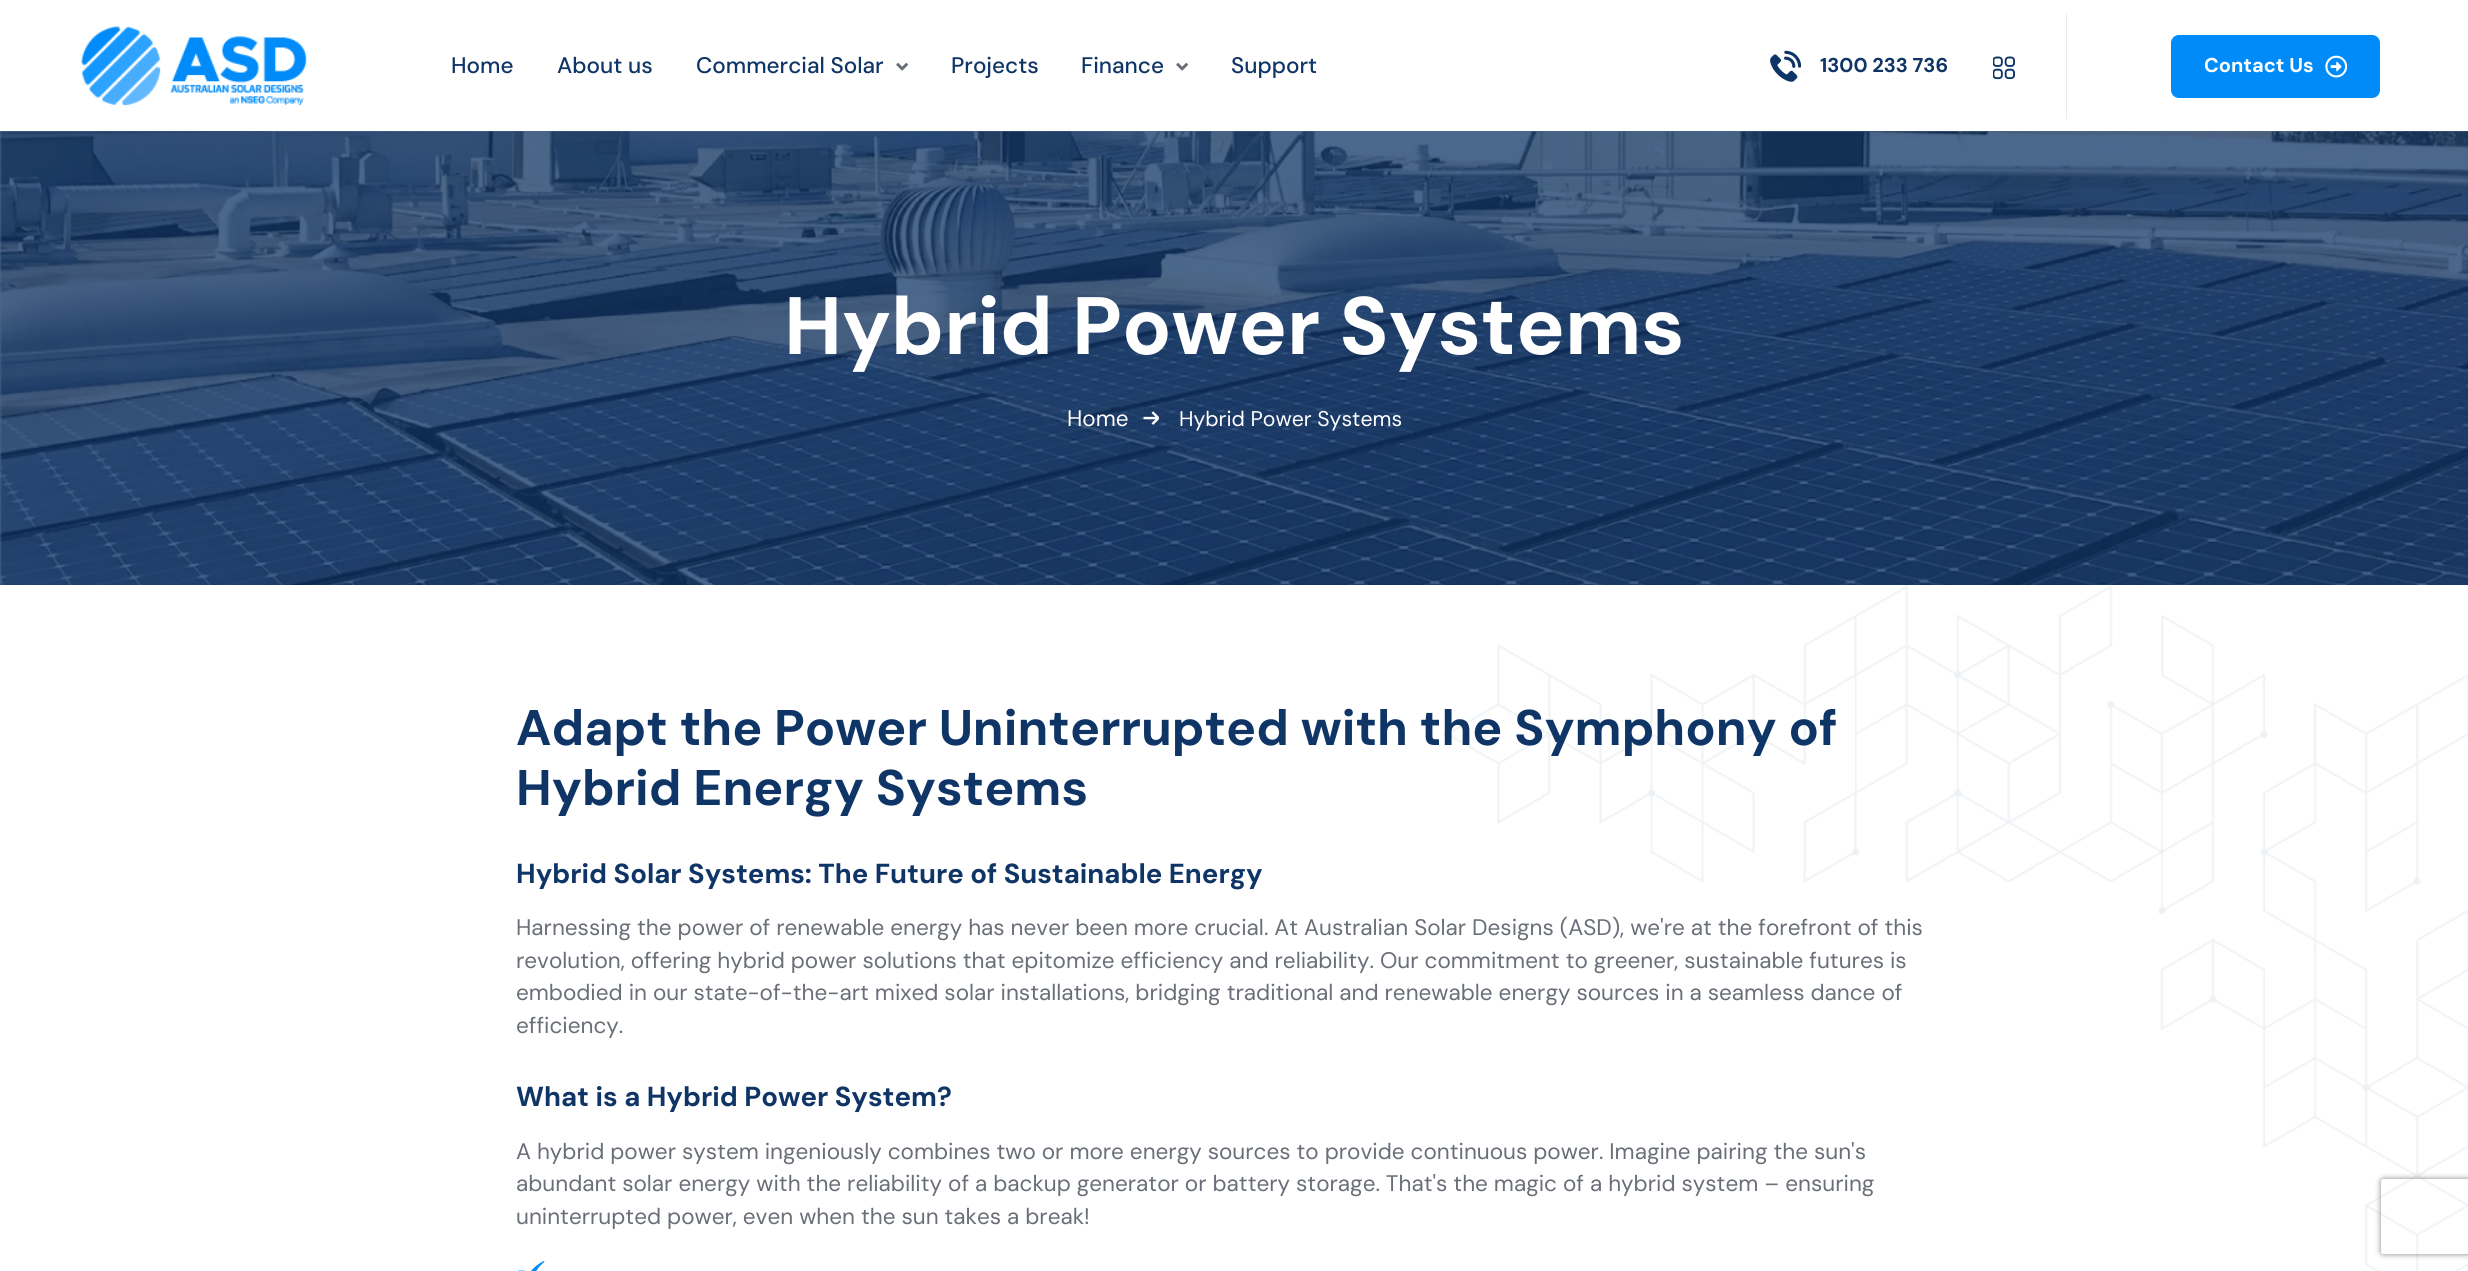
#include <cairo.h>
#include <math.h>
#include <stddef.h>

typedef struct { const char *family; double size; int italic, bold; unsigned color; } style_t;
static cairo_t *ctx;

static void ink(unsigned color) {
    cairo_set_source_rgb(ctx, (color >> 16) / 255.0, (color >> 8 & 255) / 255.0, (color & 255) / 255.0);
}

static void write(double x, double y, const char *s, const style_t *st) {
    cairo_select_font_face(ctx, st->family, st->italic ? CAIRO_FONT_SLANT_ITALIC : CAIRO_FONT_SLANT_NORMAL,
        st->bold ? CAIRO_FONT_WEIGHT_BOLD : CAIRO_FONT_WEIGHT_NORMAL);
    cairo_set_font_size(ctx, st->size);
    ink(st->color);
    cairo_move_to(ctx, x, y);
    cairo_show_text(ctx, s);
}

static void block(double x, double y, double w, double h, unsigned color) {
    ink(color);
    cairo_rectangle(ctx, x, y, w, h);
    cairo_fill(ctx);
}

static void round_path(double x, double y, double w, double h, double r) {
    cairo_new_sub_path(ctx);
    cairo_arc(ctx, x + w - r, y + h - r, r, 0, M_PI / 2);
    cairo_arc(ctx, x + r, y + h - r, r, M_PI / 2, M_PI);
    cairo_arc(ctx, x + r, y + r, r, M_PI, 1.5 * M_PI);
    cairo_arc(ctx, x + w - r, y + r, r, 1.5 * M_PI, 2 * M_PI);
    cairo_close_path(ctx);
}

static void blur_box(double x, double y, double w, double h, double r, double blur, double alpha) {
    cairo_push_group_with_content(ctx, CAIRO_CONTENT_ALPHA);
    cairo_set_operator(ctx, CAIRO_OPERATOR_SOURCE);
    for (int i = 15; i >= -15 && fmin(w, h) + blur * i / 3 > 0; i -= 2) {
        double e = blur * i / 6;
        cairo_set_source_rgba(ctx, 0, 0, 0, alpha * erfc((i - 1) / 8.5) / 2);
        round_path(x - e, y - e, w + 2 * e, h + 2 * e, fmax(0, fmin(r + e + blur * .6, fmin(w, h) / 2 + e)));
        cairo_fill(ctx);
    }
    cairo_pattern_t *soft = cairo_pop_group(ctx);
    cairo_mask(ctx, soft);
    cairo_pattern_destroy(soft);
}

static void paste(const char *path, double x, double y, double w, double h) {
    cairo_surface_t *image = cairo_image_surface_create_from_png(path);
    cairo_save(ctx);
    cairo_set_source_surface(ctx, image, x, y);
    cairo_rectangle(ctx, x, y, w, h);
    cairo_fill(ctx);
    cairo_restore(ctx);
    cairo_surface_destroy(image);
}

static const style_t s1 = {"DM Sans Medium", 22.5, 0, 0, 0x0f3567};
static const style_t s2 = {"DM Sans", 20, 0, 1, 0x0f3567};
static const style_t s3 = {"DM Sans", 20, 0, 1, 0xffffff};
static const style_t s4 = {"DM Sans", 81.25, 0, 1, 0xffffff};
static const style_t s5 = {"DM Sans", 22.5, 0, 0, 0xffffff};
static const style_t s6 = {"DM Sans", 21.25, 0, 0, 0xffffff};
static const style_t s7 = {"DM Sans", 50, 0, 1, 0x0f3567};
static const style_t s8 = {"DM Sans", 27.5, 0, 1, 0x0f3567};
static const style_t s9 = {"DM Sans", 22.5, 0, 0, 0x696e77};

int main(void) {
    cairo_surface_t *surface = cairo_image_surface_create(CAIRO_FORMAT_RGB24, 2468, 1271);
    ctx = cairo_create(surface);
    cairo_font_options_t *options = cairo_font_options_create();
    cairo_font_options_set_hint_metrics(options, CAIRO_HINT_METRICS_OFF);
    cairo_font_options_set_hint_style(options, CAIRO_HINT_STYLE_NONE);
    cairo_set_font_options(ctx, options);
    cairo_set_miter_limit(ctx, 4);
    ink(0xffffff);
    cairo_paint(ctx);
    block(0, 131, 2468, 454, 0x4b688d);
    paste("pic1.png", 81, 26, 226, 80);
    write(451, 73, "Home", &s1);
    write(557, 73, "About us", &s1);
    write(696, 73, "Commercial Solar", &s1);
    paste("pic2.png", 896, 63, 12, 8);
    write(951, 73, "Projects", &s1);
    write(1081, 73, "Finance", &s1);
    paste("pic2.png", 1176, 63, 12, 8);
    write(1231, 73, "Support", &s1);
    paste("pic3.png", 1770, 50, 31, 32);
    write(1820, 72, "1300 233 736", &s2);
    paste("pic4.png", 1993, 56, 22, 24);
    block(2066, 14, 1, 105, 0xe7ebf0);
    ink(0x008bf9);
    round_path(2171.5, 35.5, 208, 62, 7.5);
    cairo_fill_preserve(ctx);
    cairo_set_line_width(ctx, 1);
    cairo_stroke(ctx);
    write(2204, 72, "Contact Us", &s3);
    paste("pic5.png", 2325, 55, 23, 23);
    paste("pic6.png", 0, 131, 2468, 454);
    write(784, 354, "Hybrid Power Systems", &s4);
    write(1067, 426, "Home", &s5);
    paste("pic7.png", 1143, 411, 16, 14);
    write(1179, 426, "Hybrid Power Systems", &s6);
    write(516, 745, "Adapt the Power Uninterrupted with the Symphony of", &s7);
    write(516, 805, "Hybrid Energy Systems", &s7);
    write(516, 883, "Hybrid Solar Systems: The Future of Sustainable Energy", &s8);
    write(516, 935, "Harnessing the power of renewable energy has never been more crucial. At Australian Solar Designs (ASD), we're at the forefront of this", &s9);
    write(516, 968, "revolution, offering hybrid power solutions that epitomize efficiency and reliability. Our commitment to greener, sustainable futures is", &s9);
    write(516, 1000, "embodied in our state-of-the-art mixed solar installations, bridging traditional and renewable energy sources in a seamless dance of", &s9);
    write(516, 1033, "efficiency.", &s9);
    write(516, 1106, "What is a Hybrid Power System?", &s8);
    write(516, 1159, "A hybrid power system ingeniously combines two or more energy sources to provide continuous power. Imagine pairing the sun's", &s9);
    write(516, 1191, "abundant solar energy with the reliability of a backup generator or battery storage. That's the magic of a hybrid system – ensuring", &s9);
    write(516, 1224, "uninterrupted power, even when the sun takes a break!", &s9);
    paste("pic8.png", 518, 1261, 27, 10);
    paste("pic9.png", 1444, 585, 1024, 686);
    cairo_save(ctx);
    cairo_set_fill_rule(ctx, CAIRO_FILL_RULE_EVEN_ODD);
    cairo_new_path(ctx);
    cairo_move_to(ctx, 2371, 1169);
    cairo_line_to(ctx, 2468, 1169);
    cairo_line_to(ctx, 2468, 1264);
    cairo_line_to(ctx, 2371, 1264);
    cairo_close_path(ctx);
    cairo_move_to(ctx, 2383.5, 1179);
    cairo_line_to(ctx, 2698.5, 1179);
    cairo_curve_to(ctx, 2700, 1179, 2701, 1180, 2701, 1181.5);
    cairo_line_to(ctx, 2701, 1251.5);
    cairo_curve_to(ctx, 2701, 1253, 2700, 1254, 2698.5, 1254);
    cairo_line_to(ctx, 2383.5, 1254);
    cairo_curve_to(ctx, 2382, 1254, 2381, 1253, 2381, 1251.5);
    cairo_line_to(ctx, 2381, 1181.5);
    cairo_curve_to(ctx, 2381, 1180, 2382, 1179, 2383.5, 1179);
    cairo_close_path(ctx);
    cairo_clip(ctx);
    ink(0x808080);
    blur_box(2381, 1179, 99, 75, 2.5, 3, 1);
    cairo_restore(ctx);
    cairo_surface_write_to_png(surface, "screenshot.png");
    cairo_font_options_destroy(options);
    cairo_destroy(ctx);
    cairo_surface_destroy(surface);
    return 0;
}
